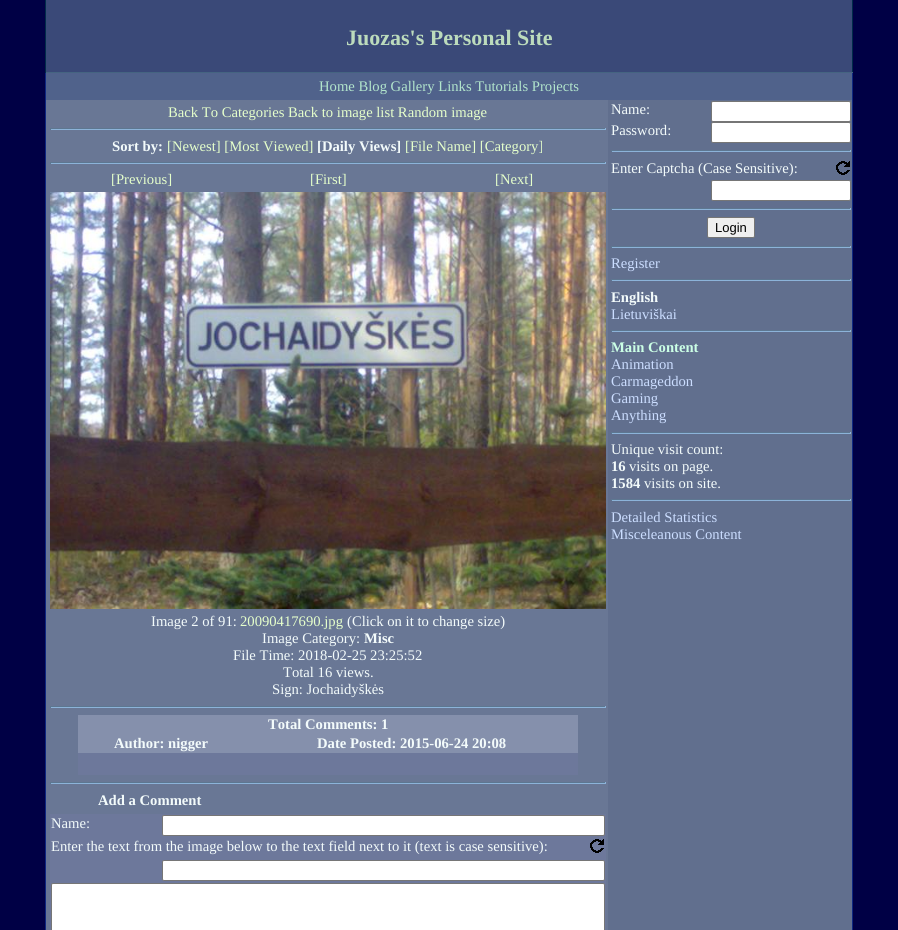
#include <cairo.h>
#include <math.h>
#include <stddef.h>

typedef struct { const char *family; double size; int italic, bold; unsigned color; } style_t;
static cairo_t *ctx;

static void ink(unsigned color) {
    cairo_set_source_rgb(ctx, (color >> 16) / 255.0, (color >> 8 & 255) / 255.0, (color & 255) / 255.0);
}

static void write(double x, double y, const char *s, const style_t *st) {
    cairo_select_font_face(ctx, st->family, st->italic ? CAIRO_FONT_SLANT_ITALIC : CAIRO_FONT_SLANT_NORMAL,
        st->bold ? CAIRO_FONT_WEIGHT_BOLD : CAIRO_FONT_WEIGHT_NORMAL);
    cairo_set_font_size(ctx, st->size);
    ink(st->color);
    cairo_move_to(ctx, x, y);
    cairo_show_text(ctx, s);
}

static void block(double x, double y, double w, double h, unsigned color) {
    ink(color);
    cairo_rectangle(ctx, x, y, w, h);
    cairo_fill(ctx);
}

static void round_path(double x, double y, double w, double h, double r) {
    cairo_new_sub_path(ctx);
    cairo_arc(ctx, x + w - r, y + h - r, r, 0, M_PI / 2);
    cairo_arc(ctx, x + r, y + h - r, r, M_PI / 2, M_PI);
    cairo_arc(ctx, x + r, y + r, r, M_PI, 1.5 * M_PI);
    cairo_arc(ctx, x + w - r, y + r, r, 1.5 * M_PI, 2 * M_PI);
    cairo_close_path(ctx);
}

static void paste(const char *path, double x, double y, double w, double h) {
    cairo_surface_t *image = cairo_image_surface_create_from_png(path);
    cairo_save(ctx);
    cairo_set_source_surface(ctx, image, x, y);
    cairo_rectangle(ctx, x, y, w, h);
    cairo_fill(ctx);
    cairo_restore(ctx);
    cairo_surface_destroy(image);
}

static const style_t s1 = {"Liberation Serif", 22, 0, 1, 0xbcdbbc};
static const style_t s2 = {"Liberation Serif", 14.65, 0, 0, 0xb2e5cc};
static const style_t s3 = {"Liberation Serif", 14.65, 0, 0, 0xe5ffcb};
static const style_t s4 = {"Liberation Serif", 14.65, 0, 1, 0xf3fbfb};
static const style_t s5 = {"Liberation Serif", 14.65, 0, 0, 0xf3fbfb};
static const style_t s6 = {"Liberation Sans", 13, 0, 0, 0x000000};
static const style_t s7 = {"Liberation Serif", 14.65, 0, 0, 0xcbddff};
static const style_t s8 = {"Liberation Serif", 14.65, 0, 1, 0xcbffe5};

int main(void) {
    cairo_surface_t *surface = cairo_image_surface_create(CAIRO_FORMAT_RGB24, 898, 930);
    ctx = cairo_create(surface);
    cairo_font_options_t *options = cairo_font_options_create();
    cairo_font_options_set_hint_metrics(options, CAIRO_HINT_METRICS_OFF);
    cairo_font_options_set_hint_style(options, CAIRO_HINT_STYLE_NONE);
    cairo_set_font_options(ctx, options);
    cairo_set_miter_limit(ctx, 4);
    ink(0x000045);
    cairo_paint(ctx);
    block(852, 73, 1, 857, 0x0e2780);
    block(45, 73, 1, 857, 0x0e2780);
    block(46, 0, 806, 72, 0x3a4978);
    block(852, 0, 1, 73, 0x002b4a);
    block(45, 72, 808, 1, 0x456481);
    block(45, 0, 1, 73, 0x002b4a);
    write(346, 45, "Juozas's Personal Site", &s1);
    block(46, 73, 806, 27, 0x50628b);
    write(319, 91, "Home Blog Gallery Links Tutorials Projects", &s2);
    block(46, 100, 562, 830, 0x697795);
    write(168, 117, "Back To Categories Back to image list Random image", &s3);
    block(50, 128, 556, 1, 0x5d7791);
    block(605, 128, 1, 2, 0x8cb3d9);
    block(50, 129, 556, 1, 0x8cb3d9);
    block(50, 128, 1, 2, 0x5d7791);
    write(112, 151, "Sort by:", &s4);
    write(167, 151, "[Newest] [Most Viewed]", &s3);
    write(317, 151, "[Daily Views]", &s4);
    write(405, 151, "[File Name] [Category]", &s3);
    block(50, 162, 556, 1, 0x5d7791);
    block(605, 162, 1, 2, 0x8cb3d9);
    block(50, 163, 556, 1, 0x8cb3d9);
    block(50, 162, 1, 2, 0x5d7791);
    write(111, 184, "[Previous]", &s3);
    write(310, 184, "[First]", &s3);
    write(495, 184, "[Next]", &s3);
    paste("pic1.png", 50, 192, 556, 417);
    write(151, 626, "Image 2 of 91:", &s5);
    write(240, 626, "20090417690.jpg", &s3);
    write(347, 626, "(Click on it to change size)", &s5);
    write(262, 643, "Image Category:", &s5);
    write(364, 643, "Misc", &s4);
    write(233, 660, "File Time: 2018-02-25 23:25:52", &s5);
    write(283, 677, "Total 16 views.", &s5);
    write(272, 694, "Sign: Jochaidyškės", &s5);
    block(50, 706, 556, 1, 0x5d7791);
    block(605, 706, 1, 2, 0x8cb3d9);
    block(50, 707, 556, 1, 0x8cb3d9);
    block(50, 706, 1, 2, 0x5d7791);
    block(78, 715, 500, 19, 0x8590ac);
    write(268, 729, "Total Comments: 1", &s4);
    block(78, 734, 500, 19, 0x8590ac);
    write(114, 748, "Author: nigger", &s4);
    write(317, 748, "Date Posted: 2015-06-24 20:08", &s4);
    block(78, 753, 500, 22, 0x6d789b);
    block(50, 782, 556, 1, 0x5d7791);
    block(605, 782, 1, 2, 0x8cb3d9);
    block(50, 783, 556, 1, 0x8cb3d9);
    block(50, 782, 1, 2, 0x5d7791);
    write(98, 805, "Add a Comment", &s4);
    block(50, 814, 556, 45, 0x6d789b);
    write(51, 828, "Name:", &s5);
    ink(0xffffff);
    round_path(162.5, 815.5, 442, 20, 1.5);
    cairo_fill_preserve(ctx);
    ink(0x767676);
    cairo_set_line_width(ctx, 1);
    cairo_stroke(ctx);
    write(51, 851, "Enter the text from the image below to the text field next to it (text is case sensitive):", &s5);
    paste("pic2.png", 590, 839, 14, 14);
    block(50, 859, 556, 71, 0x6d789b);
    ink(0xffffff);
    round_path(162.5, 860.5, 442, 20, 1.5);
    cairo_fill_preserve(ctx);
    ink(0x767676);
    cairo_stroke(ctx);
    ink(0xffffff);
    round_path(51.5, 883.5, 553, 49, 1.5);
    cairo_fill_preserve(ctx);
    ink(0x767676);
    cairo_stroke(ctx);
    block(608, 100, 244, 830, 0x616f8e);
    write(611, 114, "Name:", &s5);
    ink(0xffffff);
    round_path(711.5, 101.5, 139, 20, 1.5);
    cairo_fill_preserve(ctx);
    ink(0x767676);
    cairo_stroke(ctx);
    write(611, 135, "Password:", &s5);
    ink(0xffffff);
    round_path(711.5, 122.5, 139, 20, 1.5);
    cairo_fill_preserve(ctx);
    ink(0x767676);
    cairo_stroke(ctx);
    block(611, 150, 240, 1, 0x5d7791);
    block(850, 150, 1, 2, 0x8cb3d9);
    block(611, 151, 240, 1, 0x8cb3d9);
    block(611, 150, 1, 2, 0x5d7791);
    write(611, 173, "Enter Captcha (Case Sensitive):", &s5);
    paste("pic3.png", 836, 161, 14, 14);
    ink(0xffffff);
    round_path(711.5, 180.5, 139, 20, 1.5);
    cairo_fill_preserve(ctx);
    ink(0x767676);
    cairo_stroke(ctx);
    block(611, 208, 240, 1, 0x5d7791);
    block(850, 208, 1, 2, 0x8cb3d9);
    block(611, 209, 240, 1, 0x8cb3d9);
    block(611, 208, 1, 2, 0x5d7791);
    ink(0xefefef);
    round_path(707.5, 217.5, 47, 20, 1.5);
    cairo_fill_preserve(ctx);
    ink(0x767676);
    cairo_stroke(ctx);
    write(715, 232, "Login", &s6);
    block(611, 246, 240, 1, 0x5d7791);
    block(850, 246, 1, 2, 0x8cb3d9);
    block(611, 247, 240, 1, 0x8cb3d9);
    block(611, 246, 1, 2, 0x5d7791);
    write(611, 268, "Register", &s7);
    block(611, 279, 240, 1, 0x5d7791);
    block(850, 279, 1, 2, 0x8cb3d9);
    block(611, 280, 240, 1, 0x8cb3d9);
    block(611, 279, 1, 2, 0x5d7791);
    write(611, 302, "English", &s4);
    write(611, 319, "Lietuviškai", &s7);
    block(611, 330, 240, 1, 0x5d7791);
    block(850, 330, 1, 2, 0x8cb3d9);
    block(611, 331, 240, 1, 0x8cb3d9);
    block(611, 330, 1, 2, 0x5d7791);
    write(611, 352, "Main Content", &s8);
    write(611, 369, "Animation", &s7);
    write(611, 386, "Carmageddon", &s7);
    write(611, 403, "Gaming", &s7);
    write(611, 420, "Anything", &s7);
    block(611, 432, 240, 1, 0x5d7791);
    block(850, 432, 1, 2, 0x8cb3d9);
    block(611, 433, 240, 1, 0x8cb3d9);
    block(611, 432, 1, 2, 0x5d7791);
    write(611, 454, "Unique visit count:", &s5);
    write(611, 471, "16", &s4);
    write(629, 471, "visits on page.", &s5);
    write(611, 488, "1584", &s4);
    write(644, 488, "visits on site.", &s5);
    block(611, 499, 240, 1, 0x5d7791);
    block(850, 499, 1, 2, 0x8cb3d9);
    block(611, 500, 240, 1, 0x8cb3d9);
    block(611, 499, 1, 2, 0x5d7791);
    write(611, 522, "Detailed Statistics", &s7);
    write(611, 539, "Misceleanous Content", &s7);
    cairo_surface_write_to_png(surface, "screenshot.png");
    cairo_font_options_destroy(options);
    cairo_destroy(ctx);
    cairo_surface_destroy(surface);
    return 0;
}
